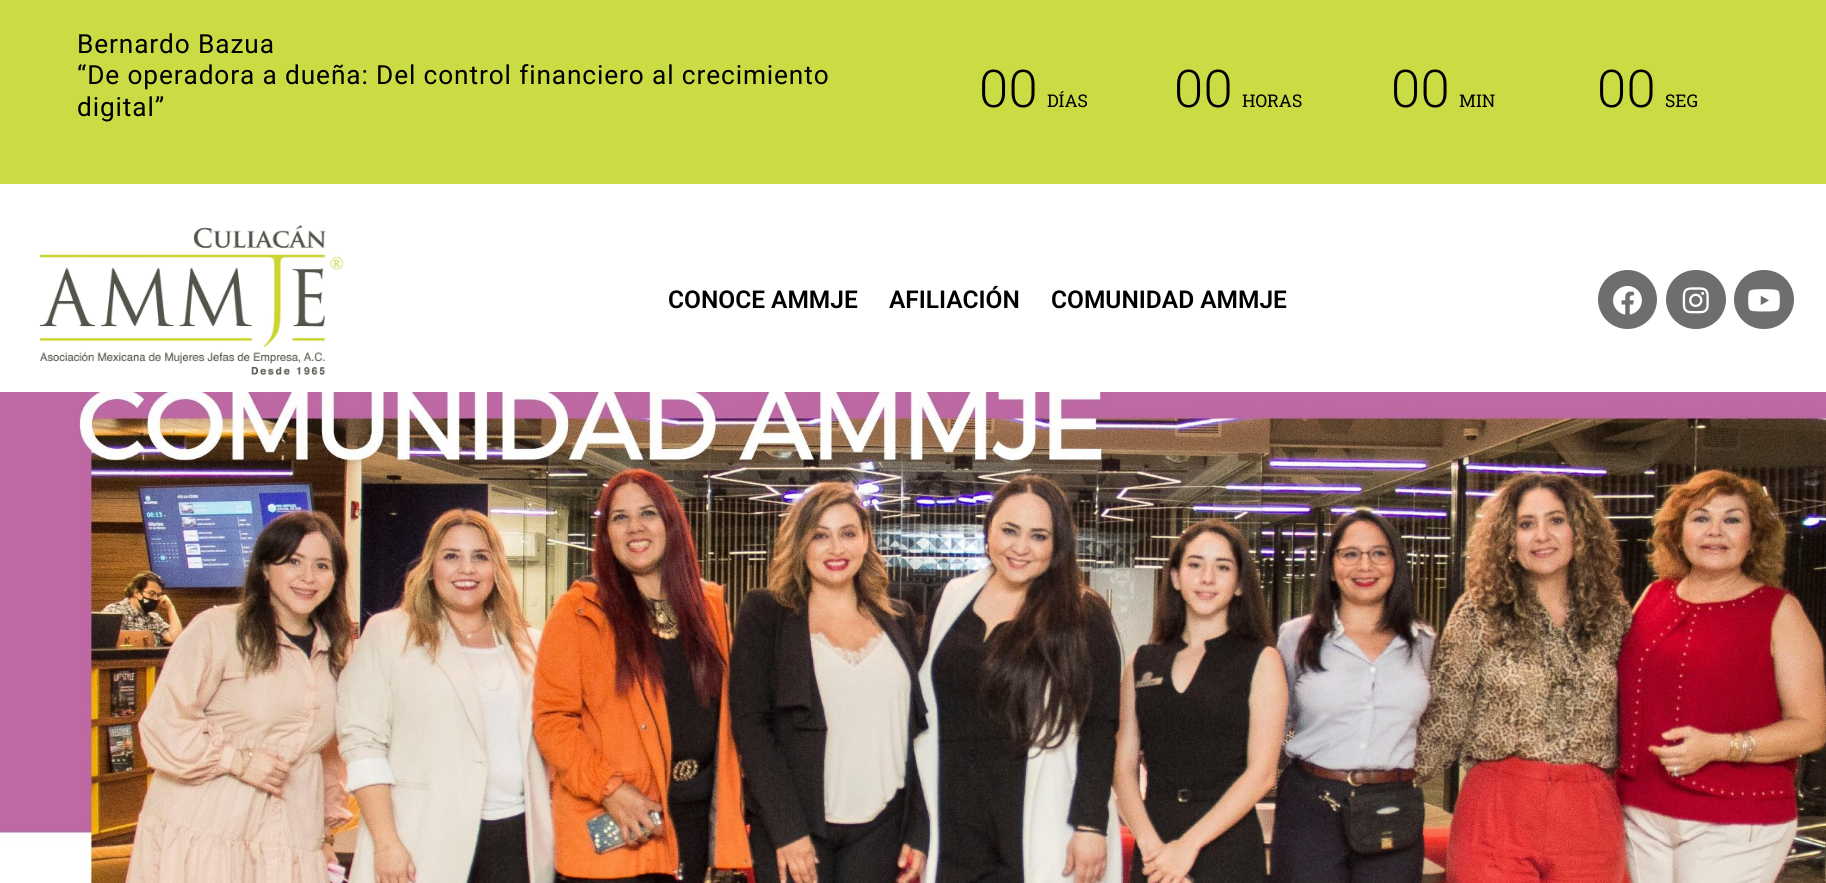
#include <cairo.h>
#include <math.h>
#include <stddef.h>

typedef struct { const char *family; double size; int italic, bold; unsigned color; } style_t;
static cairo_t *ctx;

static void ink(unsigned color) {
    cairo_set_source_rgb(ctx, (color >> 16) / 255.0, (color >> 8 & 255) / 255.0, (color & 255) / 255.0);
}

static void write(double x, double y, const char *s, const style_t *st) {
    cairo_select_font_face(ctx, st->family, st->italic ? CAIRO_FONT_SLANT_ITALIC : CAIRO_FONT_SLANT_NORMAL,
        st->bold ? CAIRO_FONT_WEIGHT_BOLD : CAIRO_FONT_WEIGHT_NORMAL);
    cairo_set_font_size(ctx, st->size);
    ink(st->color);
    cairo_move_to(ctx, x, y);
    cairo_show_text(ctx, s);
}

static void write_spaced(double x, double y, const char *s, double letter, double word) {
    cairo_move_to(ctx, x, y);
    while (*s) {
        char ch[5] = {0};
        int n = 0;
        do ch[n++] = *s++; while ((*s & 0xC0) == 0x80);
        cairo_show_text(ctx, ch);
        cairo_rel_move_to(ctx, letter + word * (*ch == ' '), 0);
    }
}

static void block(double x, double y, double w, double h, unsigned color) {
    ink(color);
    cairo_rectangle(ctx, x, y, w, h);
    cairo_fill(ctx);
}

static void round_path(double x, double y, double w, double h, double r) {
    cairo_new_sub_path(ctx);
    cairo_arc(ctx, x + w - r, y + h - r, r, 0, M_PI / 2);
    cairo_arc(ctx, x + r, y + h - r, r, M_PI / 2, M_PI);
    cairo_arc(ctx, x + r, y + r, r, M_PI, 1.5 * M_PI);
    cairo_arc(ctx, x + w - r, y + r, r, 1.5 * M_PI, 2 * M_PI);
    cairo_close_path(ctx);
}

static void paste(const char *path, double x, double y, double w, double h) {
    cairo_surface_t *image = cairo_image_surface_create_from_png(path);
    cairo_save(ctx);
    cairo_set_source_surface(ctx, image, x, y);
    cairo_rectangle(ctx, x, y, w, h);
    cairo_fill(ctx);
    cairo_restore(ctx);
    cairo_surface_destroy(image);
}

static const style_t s1 = {"Roboto Slab Light", 52, 0, 0, 0x000000};
static const style_t s2 = {"Roboto Slab", 17.5, 0, 0, 0x000000};
static const style_t s3 = {"Roboto SemiBold", 24.5, 0, 0, 0x000000};

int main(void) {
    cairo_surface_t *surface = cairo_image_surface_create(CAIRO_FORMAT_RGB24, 1826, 883);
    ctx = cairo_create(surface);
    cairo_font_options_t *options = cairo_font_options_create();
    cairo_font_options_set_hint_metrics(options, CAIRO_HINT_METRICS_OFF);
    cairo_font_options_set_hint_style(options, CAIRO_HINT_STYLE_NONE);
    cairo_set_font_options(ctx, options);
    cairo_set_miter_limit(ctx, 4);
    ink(0xffffff);
    cairo_paint(ctx);
    block(0, 0, 1826, 184, 0xcadb44);
    cairo_select_font_face(ctx, "Roboto", CAIRO_FONT_SLANT_NORMAL, CAIRO_FONT_WEIGHT_NORMAL);
    cairo_set_font_size(ctx, 26.25);
    ink(0x000000);
    write_spaced(77, 53, "Bernardo Bazua", 0.88, 0);
    write_spaced(77, 84, "“De operadora a dueña: Del control financiero al crecimiento", 0.88, 0);
    write_spaced(77, 116, "digital”", 0.88, 0);
    write(979, 107, "00", &s1);
    write(1047, 107, "DÍAS", &s2);
    write(1174, 107, "00", &s1);
    write(1242, 107, "HORAS", &s2);
    write(1391, 107, "00", &s1);
    write(1459, 107, "MIN", &s2);
    write(1597, 107, "00", &s1);
    write(1665, 107, "SEG", &s2);
    paste("pic1.png", 39, 224, 305, 151);
    write(668, 308, "CONOCE AMMJE", &s3);
    write(889, 308, "AFILIACIÓN", &s3);
    write(1051, 308, "COMUNIDAD AMMJE", &s3);
    ink(0x6d6e70);
    cairo_new_path(ctx);
    cairo_arc(ctx, 1627.5, 299.5, 29.5, 0, 2 * M_PI);
    cairo_fill(ctx);
    paste("pic2.png", 1613, 285, 29, 30);
    round_path(1666, 270, 60, 59, 29.5);
    cairo_fill(ctx);
    paste("pic3.png", 1682, 287, 27, 27);
    round_path(1734, 270, 60, 59, 29.5);
    cairo_fill(ctx);
    paste("pic4.png", 1748, 289, 32, 23);
    paste("pic5.png", 0, 392, 1826, 491);
    cairo_surface_write_to_png(surface, "screenshot.png");
    cairo_font_options_destroy(options);
    cairo_destroy(ctx);
    cairo_surface_destroy(surface);
    return 0;
}
